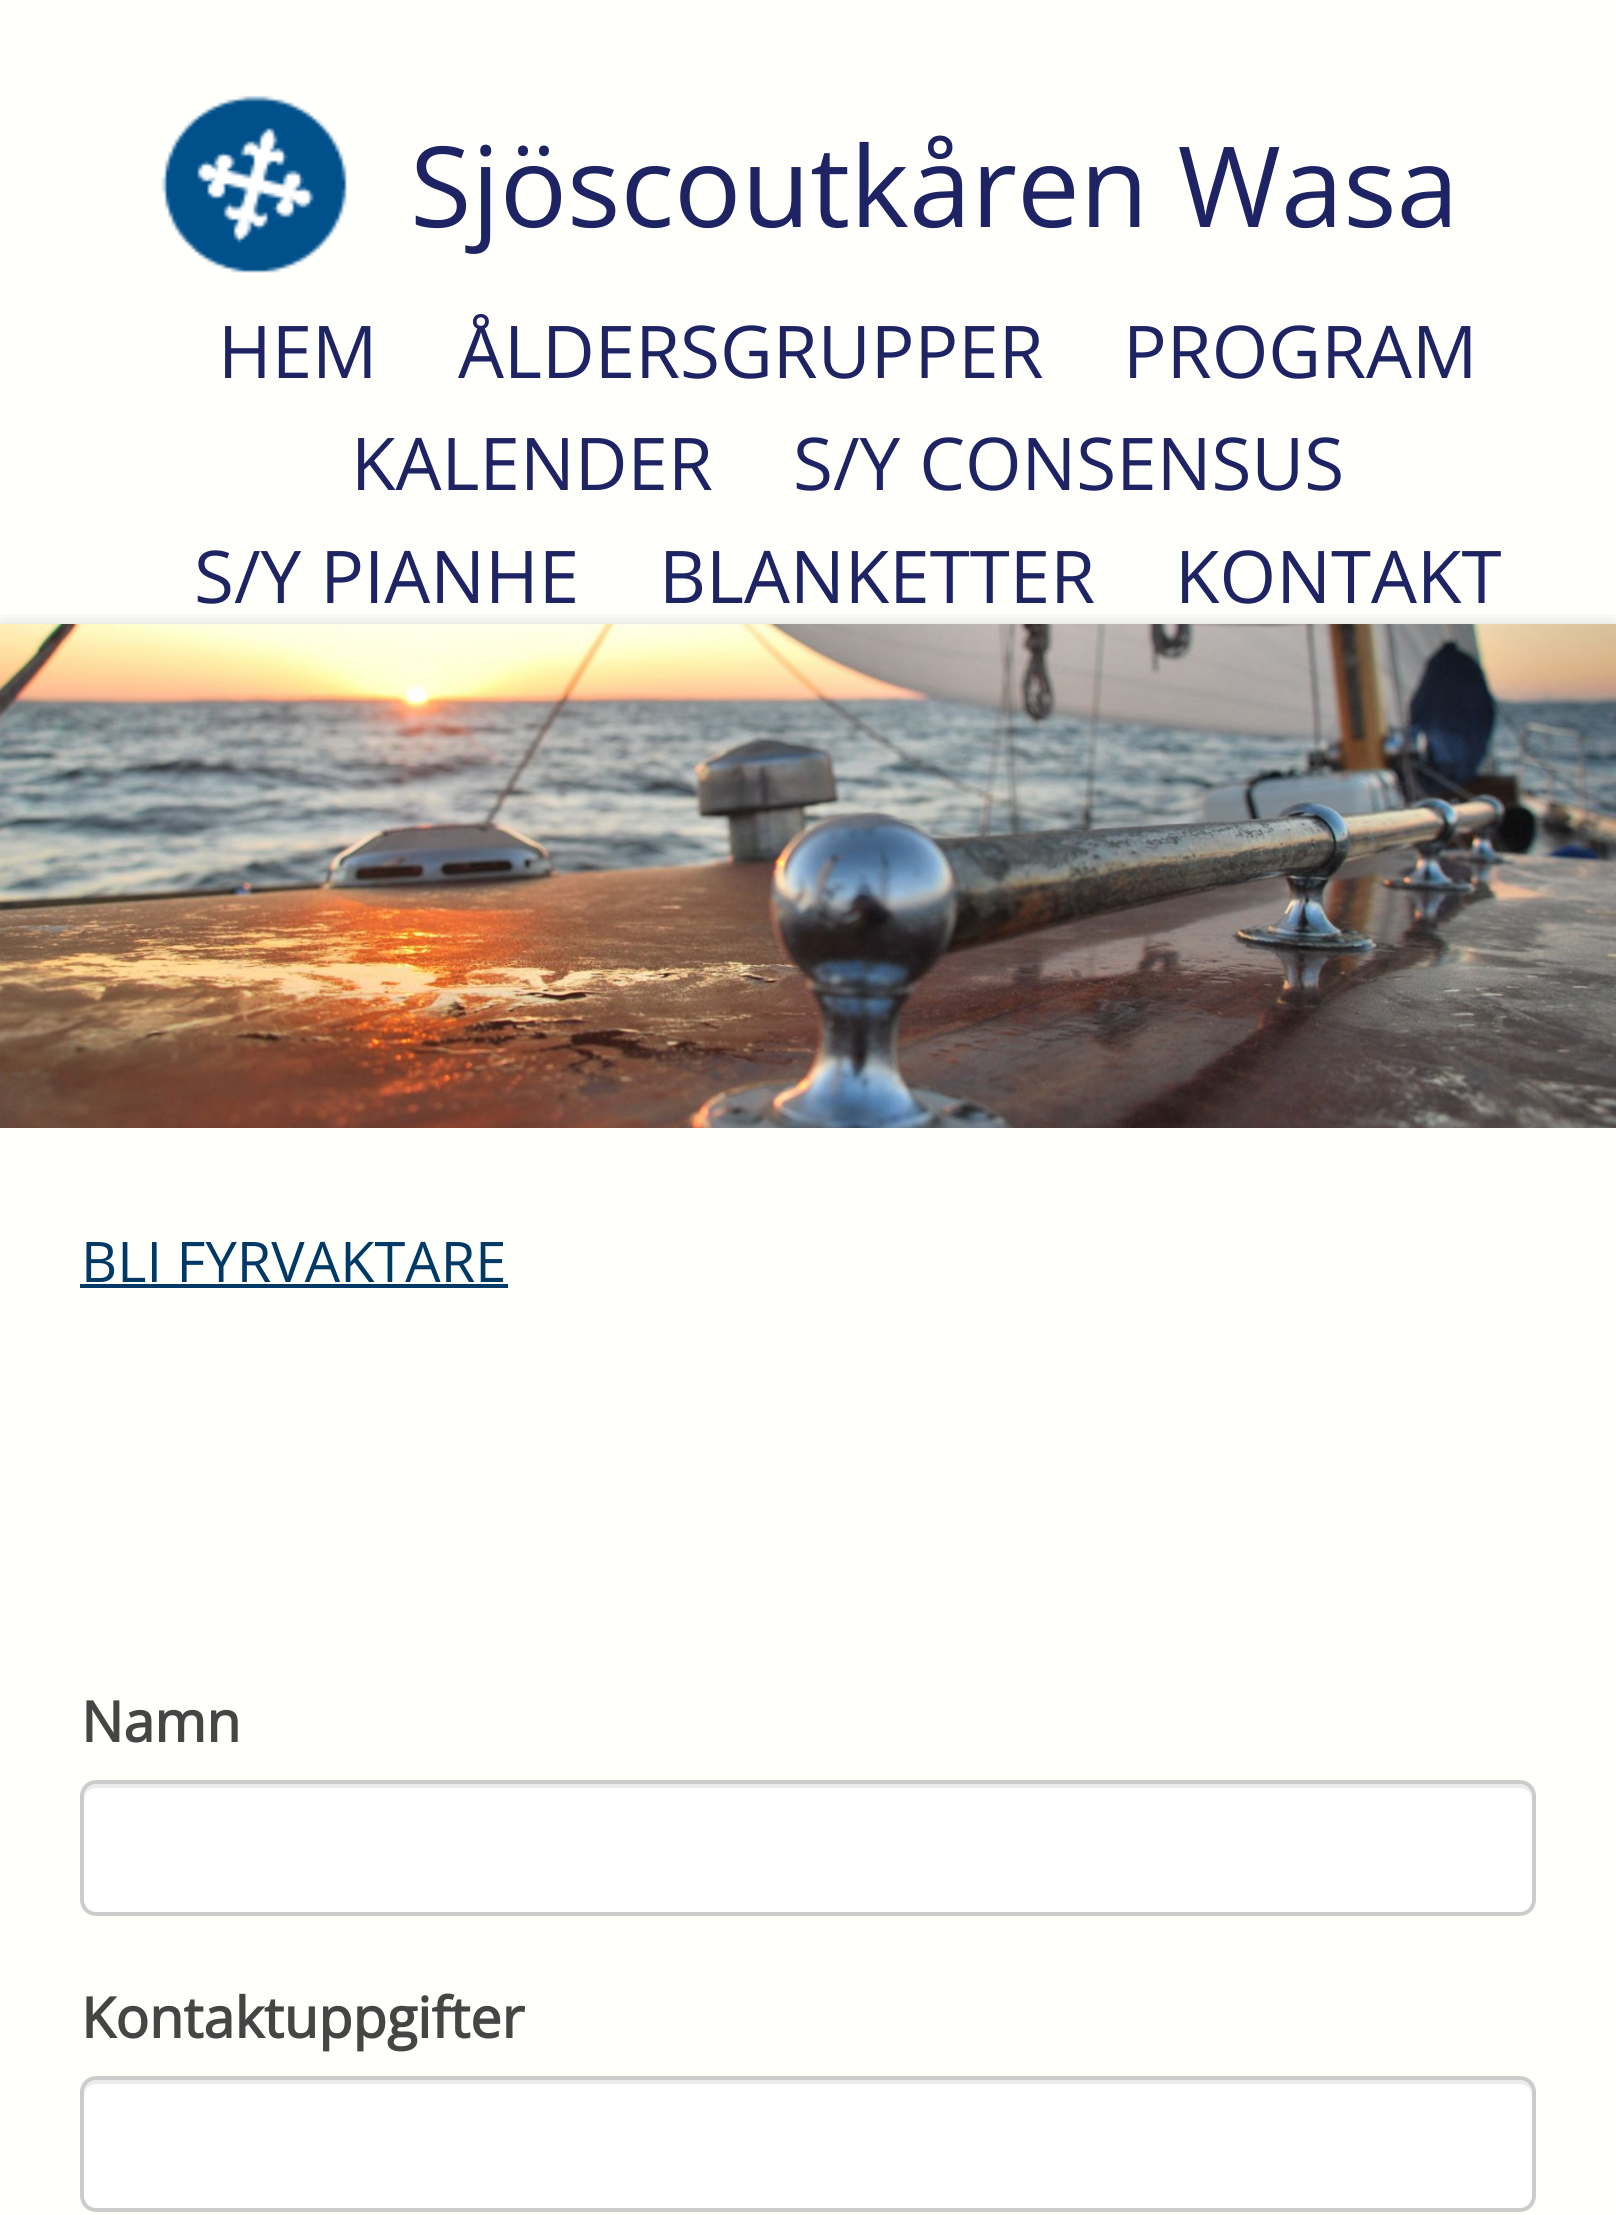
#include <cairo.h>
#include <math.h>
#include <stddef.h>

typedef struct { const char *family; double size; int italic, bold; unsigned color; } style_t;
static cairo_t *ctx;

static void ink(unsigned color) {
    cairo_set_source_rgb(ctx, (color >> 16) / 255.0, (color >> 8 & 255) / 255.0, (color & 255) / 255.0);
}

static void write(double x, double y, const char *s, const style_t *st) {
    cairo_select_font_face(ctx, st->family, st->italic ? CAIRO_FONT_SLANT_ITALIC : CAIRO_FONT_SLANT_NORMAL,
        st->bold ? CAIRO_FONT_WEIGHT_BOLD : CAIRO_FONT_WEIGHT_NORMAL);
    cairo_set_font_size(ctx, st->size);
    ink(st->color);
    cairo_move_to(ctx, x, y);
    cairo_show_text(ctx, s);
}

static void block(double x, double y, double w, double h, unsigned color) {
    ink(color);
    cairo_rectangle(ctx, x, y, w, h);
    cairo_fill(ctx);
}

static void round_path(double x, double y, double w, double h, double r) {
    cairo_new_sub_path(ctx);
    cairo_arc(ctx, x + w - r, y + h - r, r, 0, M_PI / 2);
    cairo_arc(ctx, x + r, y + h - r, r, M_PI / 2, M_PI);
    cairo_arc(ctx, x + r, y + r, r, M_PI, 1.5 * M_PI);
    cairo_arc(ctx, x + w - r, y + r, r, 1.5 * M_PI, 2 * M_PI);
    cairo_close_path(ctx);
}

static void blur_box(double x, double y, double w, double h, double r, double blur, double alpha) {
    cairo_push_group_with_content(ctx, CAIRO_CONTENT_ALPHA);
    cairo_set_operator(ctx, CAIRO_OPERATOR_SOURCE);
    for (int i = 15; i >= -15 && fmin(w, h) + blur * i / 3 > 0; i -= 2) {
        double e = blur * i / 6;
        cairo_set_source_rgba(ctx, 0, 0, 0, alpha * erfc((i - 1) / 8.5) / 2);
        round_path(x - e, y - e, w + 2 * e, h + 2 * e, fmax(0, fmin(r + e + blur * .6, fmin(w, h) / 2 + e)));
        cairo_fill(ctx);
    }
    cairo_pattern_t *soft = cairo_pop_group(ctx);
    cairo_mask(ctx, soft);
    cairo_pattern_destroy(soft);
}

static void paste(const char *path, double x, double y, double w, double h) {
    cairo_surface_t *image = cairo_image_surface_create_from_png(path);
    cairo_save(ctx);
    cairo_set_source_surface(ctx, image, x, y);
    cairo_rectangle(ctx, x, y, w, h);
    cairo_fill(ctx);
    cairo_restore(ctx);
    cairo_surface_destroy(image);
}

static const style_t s1 = {"Open Sans", 112, 0, 0, 0x1e2363};
static const style_t s2 = {"Open Sans", 72.75, 0, 0, 0x1e2363};
static const style_t s3 = {"Open Sans", 56, 0, 0, 0x003965};
static const style_t s4 = {"Open Sans", 56, 0, 1, 0x454545};

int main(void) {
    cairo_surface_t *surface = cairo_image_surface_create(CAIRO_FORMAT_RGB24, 1616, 2215);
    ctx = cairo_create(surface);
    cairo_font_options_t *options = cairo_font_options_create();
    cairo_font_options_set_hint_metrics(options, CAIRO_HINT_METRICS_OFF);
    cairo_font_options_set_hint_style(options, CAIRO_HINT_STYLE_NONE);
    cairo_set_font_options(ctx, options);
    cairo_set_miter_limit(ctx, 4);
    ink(0xfffffc);
    cairo_paint(ctx);
    paste("pic1.png", 161, 95, 186, 178);
    write(410, 227, "Sjöscoutkåren Wasa", &s1);
    write(218, 378, "HEM", &s2);
    write(458, 378, "ÅLDERSGRUPPER", &s2);
    write(1123, 378, "PROGRAM", &s2);
    write(351, 490, "KALENDER", &s2);
    write(793, 490, "S/Y CONSENSUS", &s2);
    cairo_save(ctx);
    cairo_rectangle(ctx, 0, 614, 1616, 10);
    cairo_clip(ctx);
    ink(0x000000);
    blur_box(0, 632, 1616, 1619, 0, 12, 0.3);
    cairo_restore(ctx);
    write(194, 603, "S/Y PIANHE", &s2);
    write(659, 603, "BLANKETTER", &s2);
    write(1175, 603, "KONTAKT", &s2);
    paste("pic2.png", 0, 624, 1616, 504);
    write(81, 1282, "BLI FYRVAKTARE", &s3);
    block(80, 1284, 428, 4, 0x003965);
    write(81, 1742, "Namn", &s4);
    ink(0xffffff);
    round_path(80, 1780, 1456, 136, 16);
    cairo_fill(ctx);
    ink(0xececec);
    cairo_new_path(ctx);
    cairo_move_to(ctx, 96, 1788);
    cairo_line_to(ctx, 1520, 1788);
    cairo_curve_to(ctx, 1527, 1788, 1532, 1793, 1532, 1800);
    cairo_line_to(ctx, 1532, 1796);
    cairo_curve_to(ctx, 1532, 1789, 1527, 1784, 1520, 1784);
    cairo_line_to(ctx, 96, 1784);
    cairo_curve_to(ctx, 89, 1784, 84, 1789, 84, 1796);
    cairo_line_to(ctx, 84, 1800);
    cairo_curve_to(ctx, 84, 1793, 89, 1788, 96, 1788);
    cairo_close_path(ctx);
    cairo_fill(ctx);
    round_path(82, 1782, 1452, 132, 14);
    ink(0xcccccc);
    cairo_set_line_width(ctx, 4);
    cairo_stroke(ctx);
    write(81, 2038, "Kontaktuppgifter", &s4);
    ink(0xffffff);
    round_path(80, 2076, 1456, 136, 16);
    cairo_fill(ctx);
    ink(0xececec);
    cairo_new_path(ctx);
    cairo_move_to(ctx, 96, 2084);
    cairo_line_to(ctx, 1520, 2084);
    cairo_curve_to(ctx, 1527, 2084, 1532, 2089, 1532, 2096);
    cairo_line_to(ctx, 1532, 2092);
    cairo_curve_to(ctx, 1532, 2085, 1527, 2080, 1520, 2080);
    cairo_line_to(ctx, 96, 2080);
    cairo_curve_to(ctx, 89, 2080, 84, 2085, 84, 2092);
    cairo_line_to(ctx, 84, 2096);
    cairo_curve_to(ctx, 84, 2089, 89, 2084, 96, 2084);
    cairo_close_path(ctx);
    cairo_fill(ctx);
    round_path(82, 2078, 1452, 132, 14);
    ink(0xcccccc);
    cairo_stroke(ctx);
    cairo_surface_write_to_png(surface, "screenshot.png");
    cairo_font_options_destroy(options);
    cairo_destroy(ctx);
    cairo_surface_destroy(surface);
    return 0;
}
